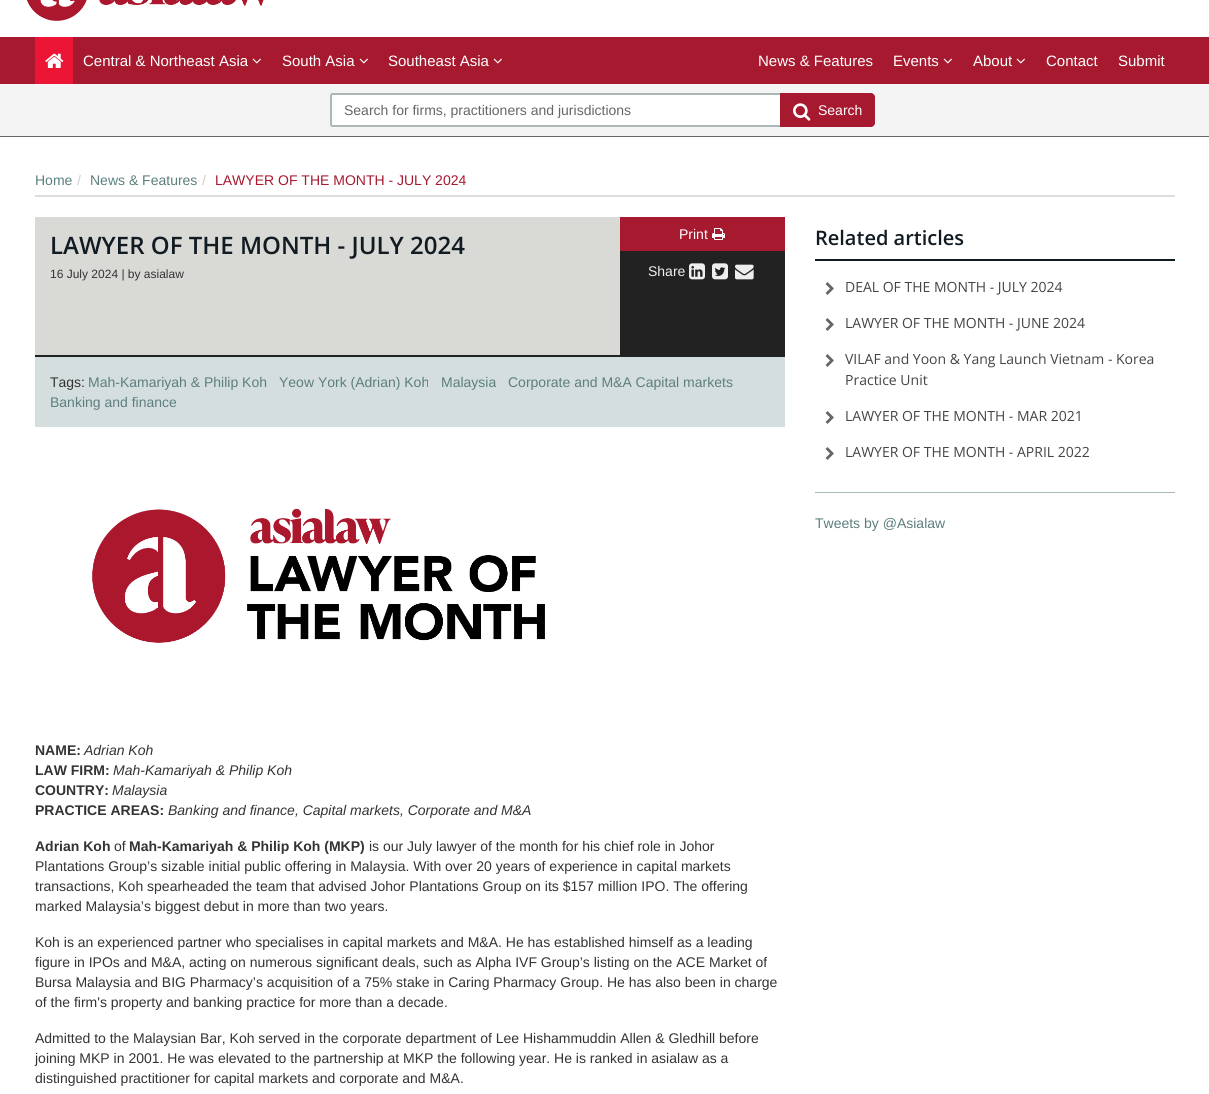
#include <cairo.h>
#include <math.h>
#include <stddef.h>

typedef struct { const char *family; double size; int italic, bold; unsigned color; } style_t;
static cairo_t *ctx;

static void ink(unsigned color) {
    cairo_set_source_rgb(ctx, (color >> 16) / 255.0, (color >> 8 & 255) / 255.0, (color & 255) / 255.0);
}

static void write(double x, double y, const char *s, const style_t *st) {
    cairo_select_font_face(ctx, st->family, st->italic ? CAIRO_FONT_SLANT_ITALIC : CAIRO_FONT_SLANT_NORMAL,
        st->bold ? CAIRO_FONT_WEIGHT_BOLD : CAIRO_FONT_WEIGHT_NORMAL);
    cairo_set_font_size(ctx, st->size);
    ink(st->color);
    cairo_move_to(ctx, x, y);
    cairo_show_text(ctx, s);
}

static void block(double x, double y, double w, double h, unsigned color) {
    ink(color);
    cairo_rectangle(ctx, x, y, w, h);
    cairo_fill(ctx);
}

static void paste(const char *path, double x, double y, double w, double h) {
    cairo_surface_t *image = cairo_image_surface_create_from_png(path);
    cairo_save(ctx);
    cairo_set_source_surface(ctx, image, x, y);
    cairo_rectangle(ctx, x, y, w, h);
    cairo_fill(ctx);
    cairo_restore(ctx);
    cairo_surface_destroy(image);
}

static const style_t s1 = {"Liberation Sans", 15, 0, 0, 0xffffff};
static const style_t s2 = {"Liberation Sans", 14, 0, 0, 0x666666};
static const style_t s3 = {"Liberation Sans", 14, 0, 0, 0xffffff};
static const style_t s4 = {"Liberation Sans", 14, 0, 0, 0x5c7e7e};
static const style_t s5 = {"Liberation Sans", 14, 0, 0, 0xcccccc};
static const style_t s6 = {"Liberation Sans", 14, 0, 0, 0xa6192e};
static const style_t s7 = {"Open Sans SemiBold", 24, 0, 0, 0x111b22};
static const style_t s8 = {"Liberation Sans", 12, 0, 0, 0x333333};
static const style_t s9 = {"Liberation Sans", 14, 0, 0, 0xeeeeee};
static const style_t s10 = {"Liberation Sans", 14, 0, 0, 0x333333};
static const style_t s11 = {"Liberation Sans", 14, 0, 1, 0x333333};
static const style_t s12 = {"Liberation Sans", 14, 1, 0, 0x333333};
static const style_t s13 = {"Open Sans SemiBold", 20, 0, 0, 0x111b22};
static const style_t s14 = {"Open Sans", 14, 0, 0, 0x444444};

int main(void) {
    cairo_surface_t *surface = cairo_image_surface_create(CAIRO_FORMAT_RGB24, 1209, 1094);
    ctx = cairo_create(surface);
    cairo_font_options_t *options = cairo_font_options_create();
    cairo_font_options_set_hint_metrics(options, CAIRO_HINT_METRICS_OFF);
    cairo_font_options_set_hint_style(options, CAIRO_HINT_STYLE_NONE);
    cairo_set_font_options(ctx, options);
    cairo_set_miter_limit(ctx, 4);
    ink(0xffffff);
    cairo_paint(ctx);
    paste("pic1.png", 27, 0, 237, 21);
    block(0, 37, 1209, 47, 0xa6192e);
    block(35, 37, 38, 47, 0xed1536);
    paste("pic2.png", 45, 53, 19, 15);
    write(83, 66, "Central & Northeast Asia", &s1);
    paste("pic3.png", 252, 58, 9, 6);
    write(282, 66, "South Asia", &s1);
    paste("pic3.png", 359, 58, 9, 6);
    write(388, 66, "Southeast Asia", &s1);
    paste("pic3.png", 493, 58, 9, 6);
    write(758, 66, "News & Features", &s1);
    write(893, 66, "Events", &s1);
    paste("pic3.png", 943, 58, 9, 6);
    write(973, 66, "About", &s1);
    paste("pic3.png", 1016, 58, 9, 6);
    write(1046, 66, "Contact", &s1);
    write(1118, 66, "Submit", &s1);
    block(0, 84, 1209, 52, 0xf4f4f4);
    block(0, 136, 1209, 1, 0x666666);
    ink(0xffffff);
    cairo_new_path(ctx);
    cairo_move_to(ctx, 333, 95);
    cairo_line_to(ctx, 780, 95);
    cairo_line_to(ctx, 780, 125);
    cairo_line_to(ctx, 333, 125);
    cairo_curve_to(ctx, 332.5, 125, 332, 124.5, 332, 124);
    cairo_line_to(ctx, 332, 96);
    cairo_curve_to(ctx, 332, 95.5, 332.5, 95, 333, 95);
    cairo_close_path(ctx);
    cairo_fill(ctx);
    ink(0xabb8b8);
    cairo_set_fill_rule(ctx, CAIRO_FILL_RULE_EVEN_ODD);
    cairo_new_path(ctx);
    cairo_move_to(ctx, 333, 93);
    cairo_line_to(ctx, 780, 93);
    cairo_line_to(ctx, 780, 127);
    cairo_line_to(ctx, 333, 127);
    cairo_curve_to(ctx, 331, 127, 330, 126, 330, 124);
    cairo_line_to(ctx, 330, 96);
    cairo_curve_to(ctx, 330, 94, 331, 93, 333, 93);
    cairo_close_path(ctx);
    cairo_move_to(ctx, 333, 95);
    cairo_line_to(ctx, 780, 95);
    cairo_line_to(ctx, 780, 125);
    cairo_line_to(ctx, 333, 125);
    cairo_curve_to(ctx, 332, 125, 332, 125, 332, 124);
    cairo_line_to(ctx, 332, 96);
    cairo_curve_to(ctx, 332, 95, 332, 95, 333, 95);
    cairo_close_path(ctx);
    cairo_fill(ctx);
    write(344, 115, "Search for firms, practitioners and jurisdictions", &s2);
    ink(0xa6192e);
    cairo_new_path(ctx);
    cairo_move_to(ctx, 780, 93);
    cairo_line_to(ctx, 871, 93);
    cairo_curve_to(ctx, 873, 93, 875, 95, 875, 97);
    cairo_line_to(ctx, 875, 123);
    cairo_curve_to(ctx, 875, 125, 873, 127, 871, 127);
    cairo_line_to(ctx, 780, 127);
    cairo_close_path(ctx);
    cairo_fill(ctx);
    paste("pic4.png", 793, 103, 18, 18);
    write(818, 115, "Search", &s3);
    block(35, 195, 1140, 2, 0xdddddd);
    write(35, 185, "Home", &s4);
    write(77, 185, "/", &s5);
    write(90, 185, "News & Features", &s4);
    write(202, 185, "/", &s5);
    write(215, 185, "LAWYER OF THE MONTH - JULY 2024", &s6);
    block(35, 251, 750, 106, 0x222222);
    block(35, 217, 585, 138, 0xd9d9d6);
    write(50, 254, "LAWYER OF THE MONTH - JULY 2024", &s7);
    write(50, 278, "16 July 2024 | by asialaw", &s8);
    block(620, 217, 165, 34, 0xa6192e);
    write(679, 239, "Print", &s3);
    paste("pic5.png", 712, 228, 13, 12);
    write(648, 276, "Share", &s9);
    paste("pic6.png", 689, 263, 16, 17);
    paste("pic7.png", 712, 263, 16, 17);
    paste("pic8.png", 735, 264, 19, 16);
    block(35, 357, 750, 70, 0xd5dede);
    write(50, 387, "Tags:", &s10);
    write(88, 387, "Mah-Kamariyah & Philip Koh", &s4);
    write(279, 387, "Yeow York (Adrian) Koh", &s4);
    write(441, 387, "Malaysia", &s4);
    write(508, 387, "Corporate and M&A Capital markets", &s4);
    write(50, 407, "Banking and finance", &s4);
    paste("pic9.png", 92, 508, 453, 135);
    write(35, 755, "NAME:", &s11);
    write(84, 755, "Adrian Koh", &s12);
    write(35, 775, "LAW FIRM:", &s11);
    write(113, 775, "Mah-Kamariyah & Philip Koh", &s12);
    write(35, 795, "COUNTRY:", &s11);
    write(112, 795, "Malaysia", &s12);
    write(35, 815, "PRACTICE AREAS:", &s11);
    write(168, 815, "Banking and finance, Capital markets, Corporate and M&A", &s12);
    write(35, 851, "Adrian Koh", &s11);
    write(114, 851, "of", &s10);
    write(129, 851, "Mah-Kamariyah & Philip Koh (MKP)", &s11);
    write(369, 851, "is our July lawyer of the month for his chief role in Johor", &s10);
    write(35, 871, "Plantations Group’s sizable initial public offering in Malaysia. With over 20 years of experience in capital markets", &s10);
    write(35, 891, "transactions, Koh spearheaded the team that advised Johor Plantations Group on its $157 million IPO. The offering", &s10);
    write(35, 911, "marked Malaysia’s biggest debut in more than two years.", &s10);
    write(35, 947, "Koh is an experienced partner who specialises in capital markets and M&A. He has established himself as a leading", &s10);
    write(35, 967, "figure in IPOs and M&A, acting on numerous significant deals, such as Alpha IVF Group’s listing on the ACE Market of", &s10);
    write(35, 987, "Bursa Malaysia and BIG Pharmacy’s acquisition of a 75% stake in Caring Pharmacy Group. He has also been in charge", &s10);
    write(35, 1007, "of the firm's property and banking practice for more than a decade.", &s10);
    write(35, 1043, "Admitted to the Malaysian Bar, Koh served in the corporate department of Lee Hishammuddin Allen & Gledhill before", &s10);
    write(35, 1063, "joining MKP in 2001. He was elevated to the partnership at MKP the following year. He is ranked in asialaw as a", &s10);
    write(35, 1083, "distinguished practitioner for capital markets and corporate and M&A.", &s10);
    block(815, 259, 360, 2, 0x111b22);
    write(815, 245, "Related articles", &s13);
    block(815, 492, 360, 1, 0xabb8b8);
    paste("pic10.png", 825, 282, 9, 13);
    write(845, 292, "DEAL OF THE MONTH - JULY 2024", &s14);
    paste("pic10.png", 825, 318, 9, 13);
    write(845, 328, "LAWYER OF THE MONTH - JUNE 2024", &s14);
    paste("pic10.png", 825, 354, 9, 13);
    write(845, 364, "VILAF and Yoon & Yang Launch Vietnam - Korea", &s14);
    write(845, 385, "Practice Unit", &s14);
    paste("pic10.png", 825, 411, 9, 13);
    write(845, 421, "LAWYER OF THE MONTH - MAR 2021", &s14);
    paste("pic10.png", 825, 447, 9, 13);
    write(845, 457, "LAWYER OF THE MONTH - APRIL 2022", &s14);
    write(815, 528, "Tweets by @Asialaw", &s4);
    cairo_surface_write_to_png(surface, "screenshot.png");
    cairo_font_options_destroy(options);
    cairo_destroy(ctx);
    cairo_surface_destroy(surface);
    return 0;
}
